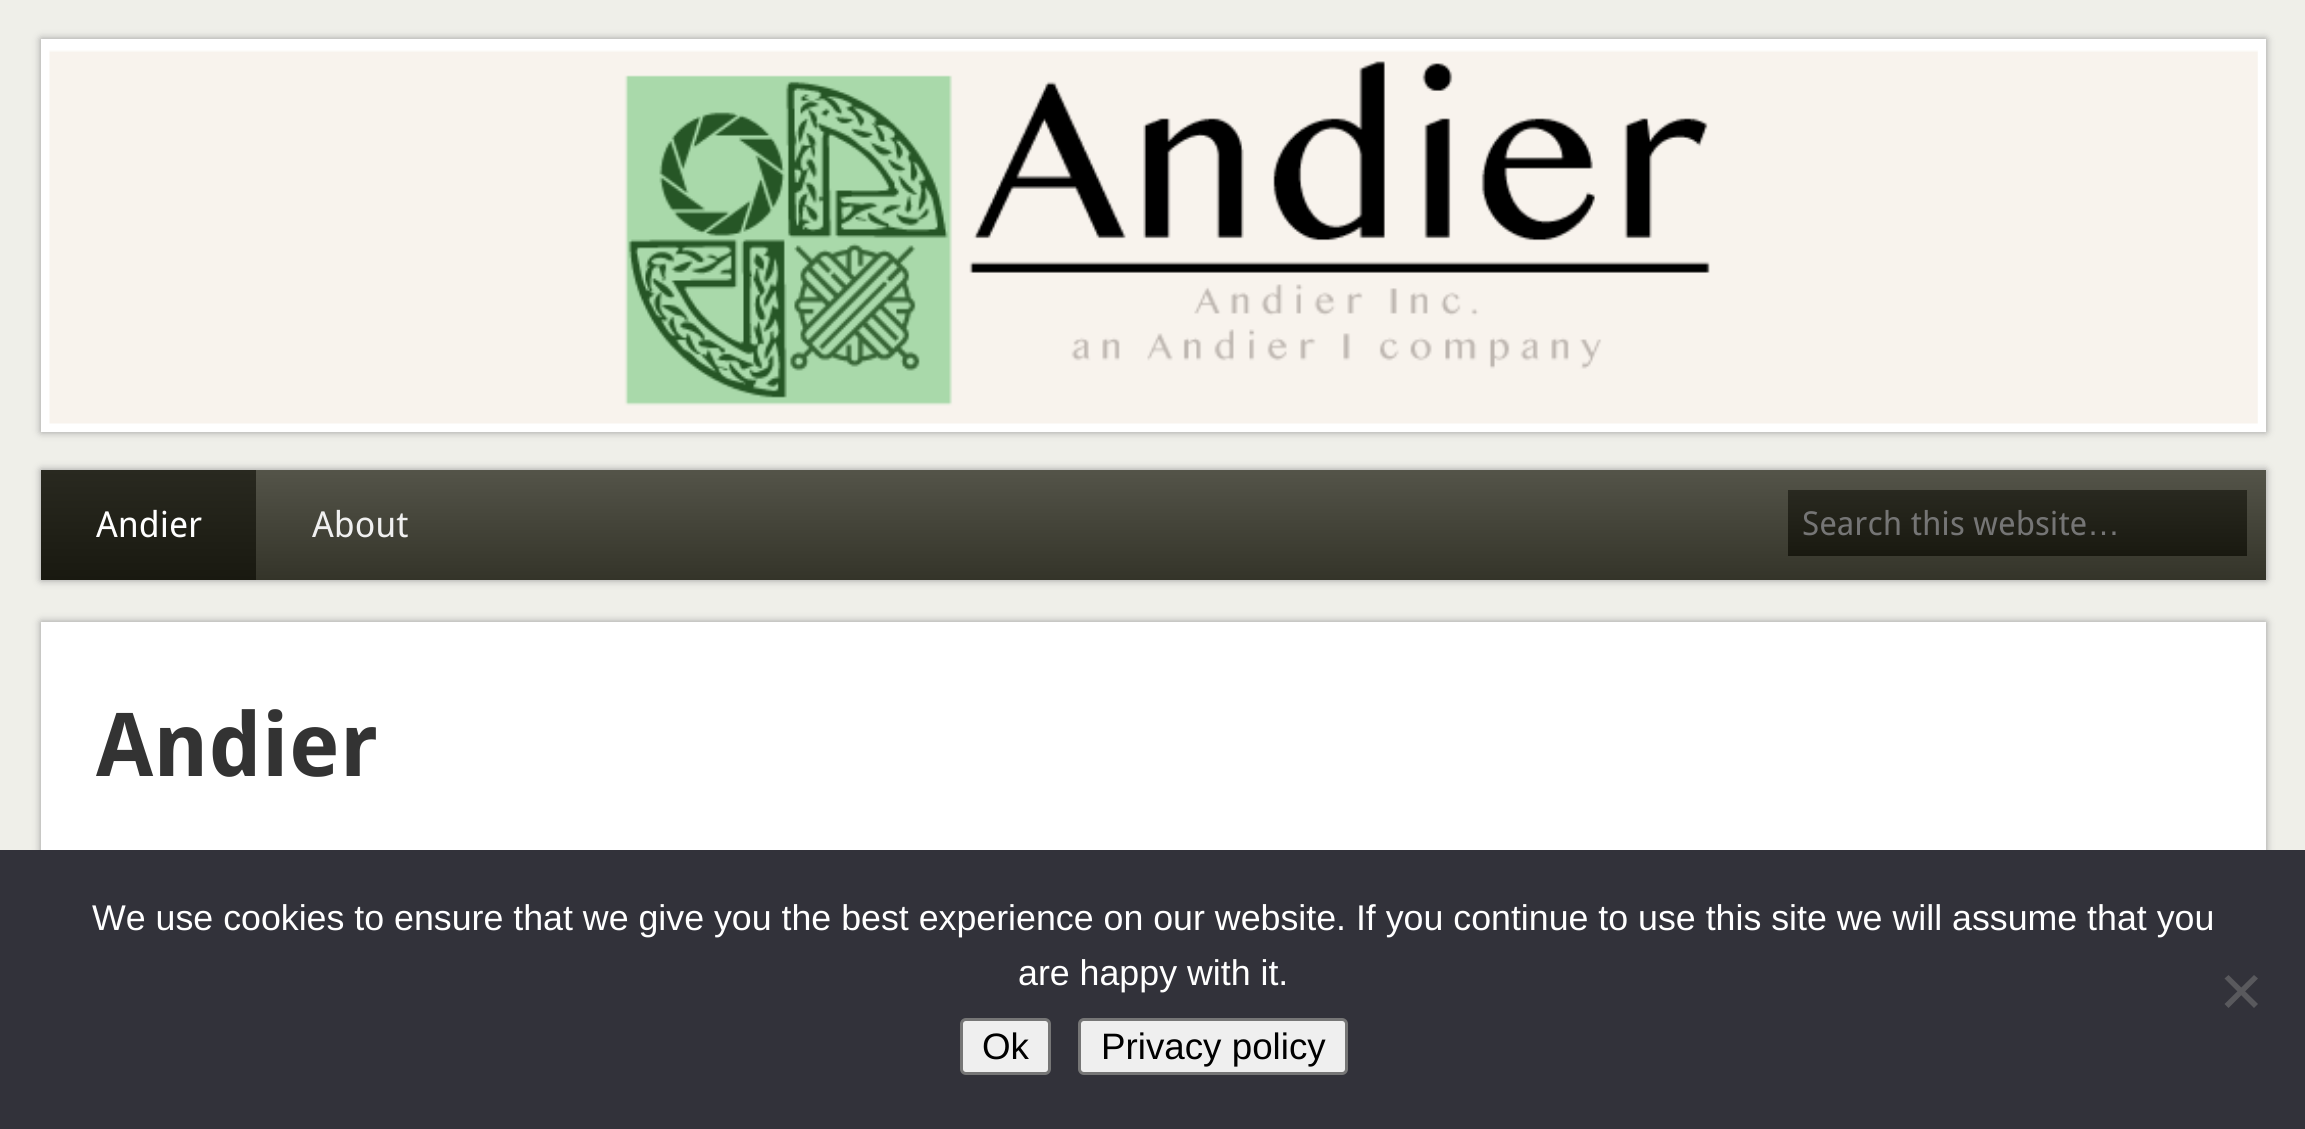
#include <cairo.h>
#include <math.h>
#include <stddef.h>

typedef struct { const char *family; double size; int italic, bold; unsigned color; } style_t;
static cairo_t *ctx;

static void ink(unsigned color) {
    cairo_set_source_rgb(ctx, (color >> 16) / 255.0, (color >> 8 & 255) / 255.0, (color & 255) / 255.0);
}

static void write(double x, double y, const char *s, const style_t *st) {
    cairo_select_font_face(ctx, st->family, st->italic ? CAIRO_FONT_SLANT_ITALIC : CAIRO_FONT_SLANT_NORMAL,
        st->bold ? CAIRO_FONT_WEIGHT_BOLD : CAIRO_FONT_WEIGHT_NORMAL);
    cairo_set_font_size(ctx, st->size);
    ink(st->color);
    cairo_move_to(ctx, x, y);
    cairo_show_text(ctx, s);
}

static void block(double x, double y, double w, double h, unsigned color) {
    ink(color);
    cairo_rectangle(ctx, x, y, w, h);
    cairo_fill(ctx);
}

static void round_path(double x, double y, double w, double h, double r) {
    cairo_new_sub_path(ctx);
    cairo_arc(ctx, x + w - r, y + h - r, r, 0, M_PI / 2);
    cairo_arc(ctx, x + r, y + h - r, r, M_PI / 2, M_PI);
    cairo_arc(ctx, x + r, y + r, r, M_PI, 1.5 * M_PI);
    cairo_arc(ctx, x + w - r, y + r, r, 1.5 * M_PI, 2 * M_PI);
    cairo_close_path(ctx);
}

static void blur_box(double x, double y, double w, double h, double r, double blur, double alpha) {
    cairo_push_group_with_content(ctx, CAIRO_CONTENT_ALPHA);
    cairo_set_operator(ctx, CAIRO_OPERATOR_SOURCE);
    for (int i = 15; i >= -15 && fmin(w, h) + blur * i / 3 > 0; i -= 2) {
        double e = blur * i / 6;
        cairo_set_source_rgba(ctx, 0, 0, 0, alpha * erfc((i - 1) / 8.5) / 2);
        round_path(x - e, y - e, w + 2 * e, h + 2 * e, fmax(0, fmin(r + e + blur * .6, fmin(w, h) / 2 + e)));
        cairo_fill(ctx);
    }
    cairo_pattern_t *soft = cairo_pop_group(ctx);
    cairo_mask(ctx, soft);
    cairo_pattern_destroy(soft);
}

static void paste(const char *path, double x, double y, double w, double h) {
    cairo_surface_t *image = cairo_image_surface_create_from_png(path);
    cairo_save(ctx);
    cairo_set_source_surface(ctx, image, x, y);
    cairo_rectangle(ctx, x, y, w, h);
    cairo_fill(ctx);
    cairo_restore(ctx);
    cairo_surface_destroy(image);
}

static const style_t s1 = {"Droid Sans", 35.75, 0, 0, 0xffffff};
static const style_t s2 = {"Droid Sans", 35.75, 0, 0, 0xf0f0f0};
static const style_t s3 = {"Droid Sans", 33, 0, 0, 0x757575};
static const style_t s4 = {"Liberation Sans", 33, 0, 0, 0x757575};
static const style_t s5 = {"Droid Sans", 88, 0, 1, 0x333333};
static const style_t s6 = {"Liberation Sans", 35.75, 0, 0, 0xffffff};
static const style_t s7 = {"Liberation Sans", 36.75, 0, 0, 0x000000};

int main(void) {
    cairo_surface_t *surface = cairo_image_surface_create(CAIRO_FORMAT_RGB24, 2305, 1129);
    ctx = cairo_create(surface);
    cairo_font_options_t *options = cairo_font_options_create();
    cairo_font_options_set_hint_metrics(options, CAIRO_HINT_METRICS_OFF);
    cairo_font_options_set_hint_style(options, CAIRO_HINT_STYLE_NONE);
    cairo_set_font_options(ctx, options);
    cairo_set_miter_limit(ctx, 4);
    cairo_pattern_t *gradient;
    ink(0xefefe9);
    cairo_paint(ctx);
    ink(0x999999);
    blur_box(41, 39, 2225, 393, 0, 4, 1);
    block(41, 39, 2225, 393, 0xffffff);
    paste("pic1.png", 49, 50, 2209, 374);
    ink(0x999999);
    blur_box(41, 470, 2225, 110, 0, 4, 1);
    gradient = cairo_pattern_create_linear(1154, 470, 1154, 690);
    cairo_pattern_add_color_stop_rgba(gradient, 0, 0.329, 0.329, 0.286, 1);
    cairo_pattern_add_color_stop_rgba(gradient, 0.5, 0.204, 0.204, 0.161, 1);
    cairo_pattern_add_color_stop_rgba(gradient, 0.5, 0.329, 0.329, 0.286, 1);
    cairo_pattern_add_color_stop_rgba(gradient, 1, 0.204, 0.204, 0.161, 1);
    cairo_set_source(ctx, gradient);
    cairo_pattern_destroy(gradient);
    cairo_rectangle(ctx, 256, 470, 2010, 110);
    cairo_fill(ctx);
    gradient = cairo_pattern_create_linear(149, 470, 149, 580);
    cairo_pattern_add_color_stop_rgba(gradient, 0, 0.161, 0.161, 0.125, 1);
    cairo_pattern_add_color_stop_rgba(gradient, 1, 0.098, 0.098, 0.063, 1);
    cairo_set_source(ctx, gradient);
    cairo_pattern_destroy(gradient);
    cairo_rectangle(ctx, 41, 470, 215, 110);
    cairo_fill(ctx);
    write(96, 537, "Andier", &s1);
    write(312, 537, "About", &s2);
    gradient = cairo_pattern_create_linear(2017, 490, 2017, 556);
    cairo_pattern_add_color_stop_rgba(gradient, 0, 0.161, 0.161, 0.125, 1);
    cairo_pattern_add_color_stop_rgba(gradient, 1, 0.098, 0.098, 0.063, 1);
    cairo_set_source(ctx, gradient);
    cairo_pattern_destroy(gradient);
    cairo_rectangle(ctx, 1788, 490, 459, 66);
    cairo_fill(ctx);
    write(1802, 535, "Search this website", &s3);
    write(2087, 535, "…", &s4);
    ink(0x999999);
    blur_box(41, 622, 2225, 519, 0, 4, 1);
    block(41, 622, 2225, 228, 0xffffff);
    write(96, 776, "Andier", &s5);
    block(0, 850, 2305, 279, 0x32323a);
    write(92, 930, "We use cookies to ensure that we give you the best experience on our website. If you continue to use this site we will assume that you", &s6);
    write(1018, 985, "are happy with it.", &s6);
    ink(0x59595d);
    cairo_new_path(ctx);
    cairo_move_to(ctx, 2254, 975);
    cairo_line_to(ctx, 2258, 978.5);
    cairo_line_to(ctx, 2228.5, 1008);
    cairo_line_to(ctx, 2224.5, 1004);
    cairo_close_path(ctx);
    cairo_fill(ctx);
    cairo_new_path(ctx);
    cairo_move_to(ctx, 2224.5, 978.5);
    cairo_line_to(ctx, 2228.5, 975);
    cairo_line_to(ctx, 2258, 1004);
    cairo_line_to(ctx, 2254, 1008);
    cairo_close_path(ctx);
    cairo_fill(ctx);
    ink(0xefefef);
    round_path(961.5, 1019.5, 88, 54, 4.5);
    cairo_fill_preserve(ctx);
    ink(0x767676);
    cairo_set_line_width(ctx, 3);
    cairo_stroke(ctx);
    write(982, 1059, "Ok", &s7);
    ink(0xefefef);
    round_path(1079.5, 1019.5, 267, 54, 4.5);
    cairo_fill_preserve(ctx);
    ink(0x767676);
    cairo_stroke(ctx);
    write(1101, 1059, "Privacy policy", &s7);
    cairo_surface_write_to_png(surface, "screenshot.png");
    cairo_font_options_destroy(options);
    cairo_destroy(ctx);
    cairo_surface_destroy(surface);
    return 0;
}
